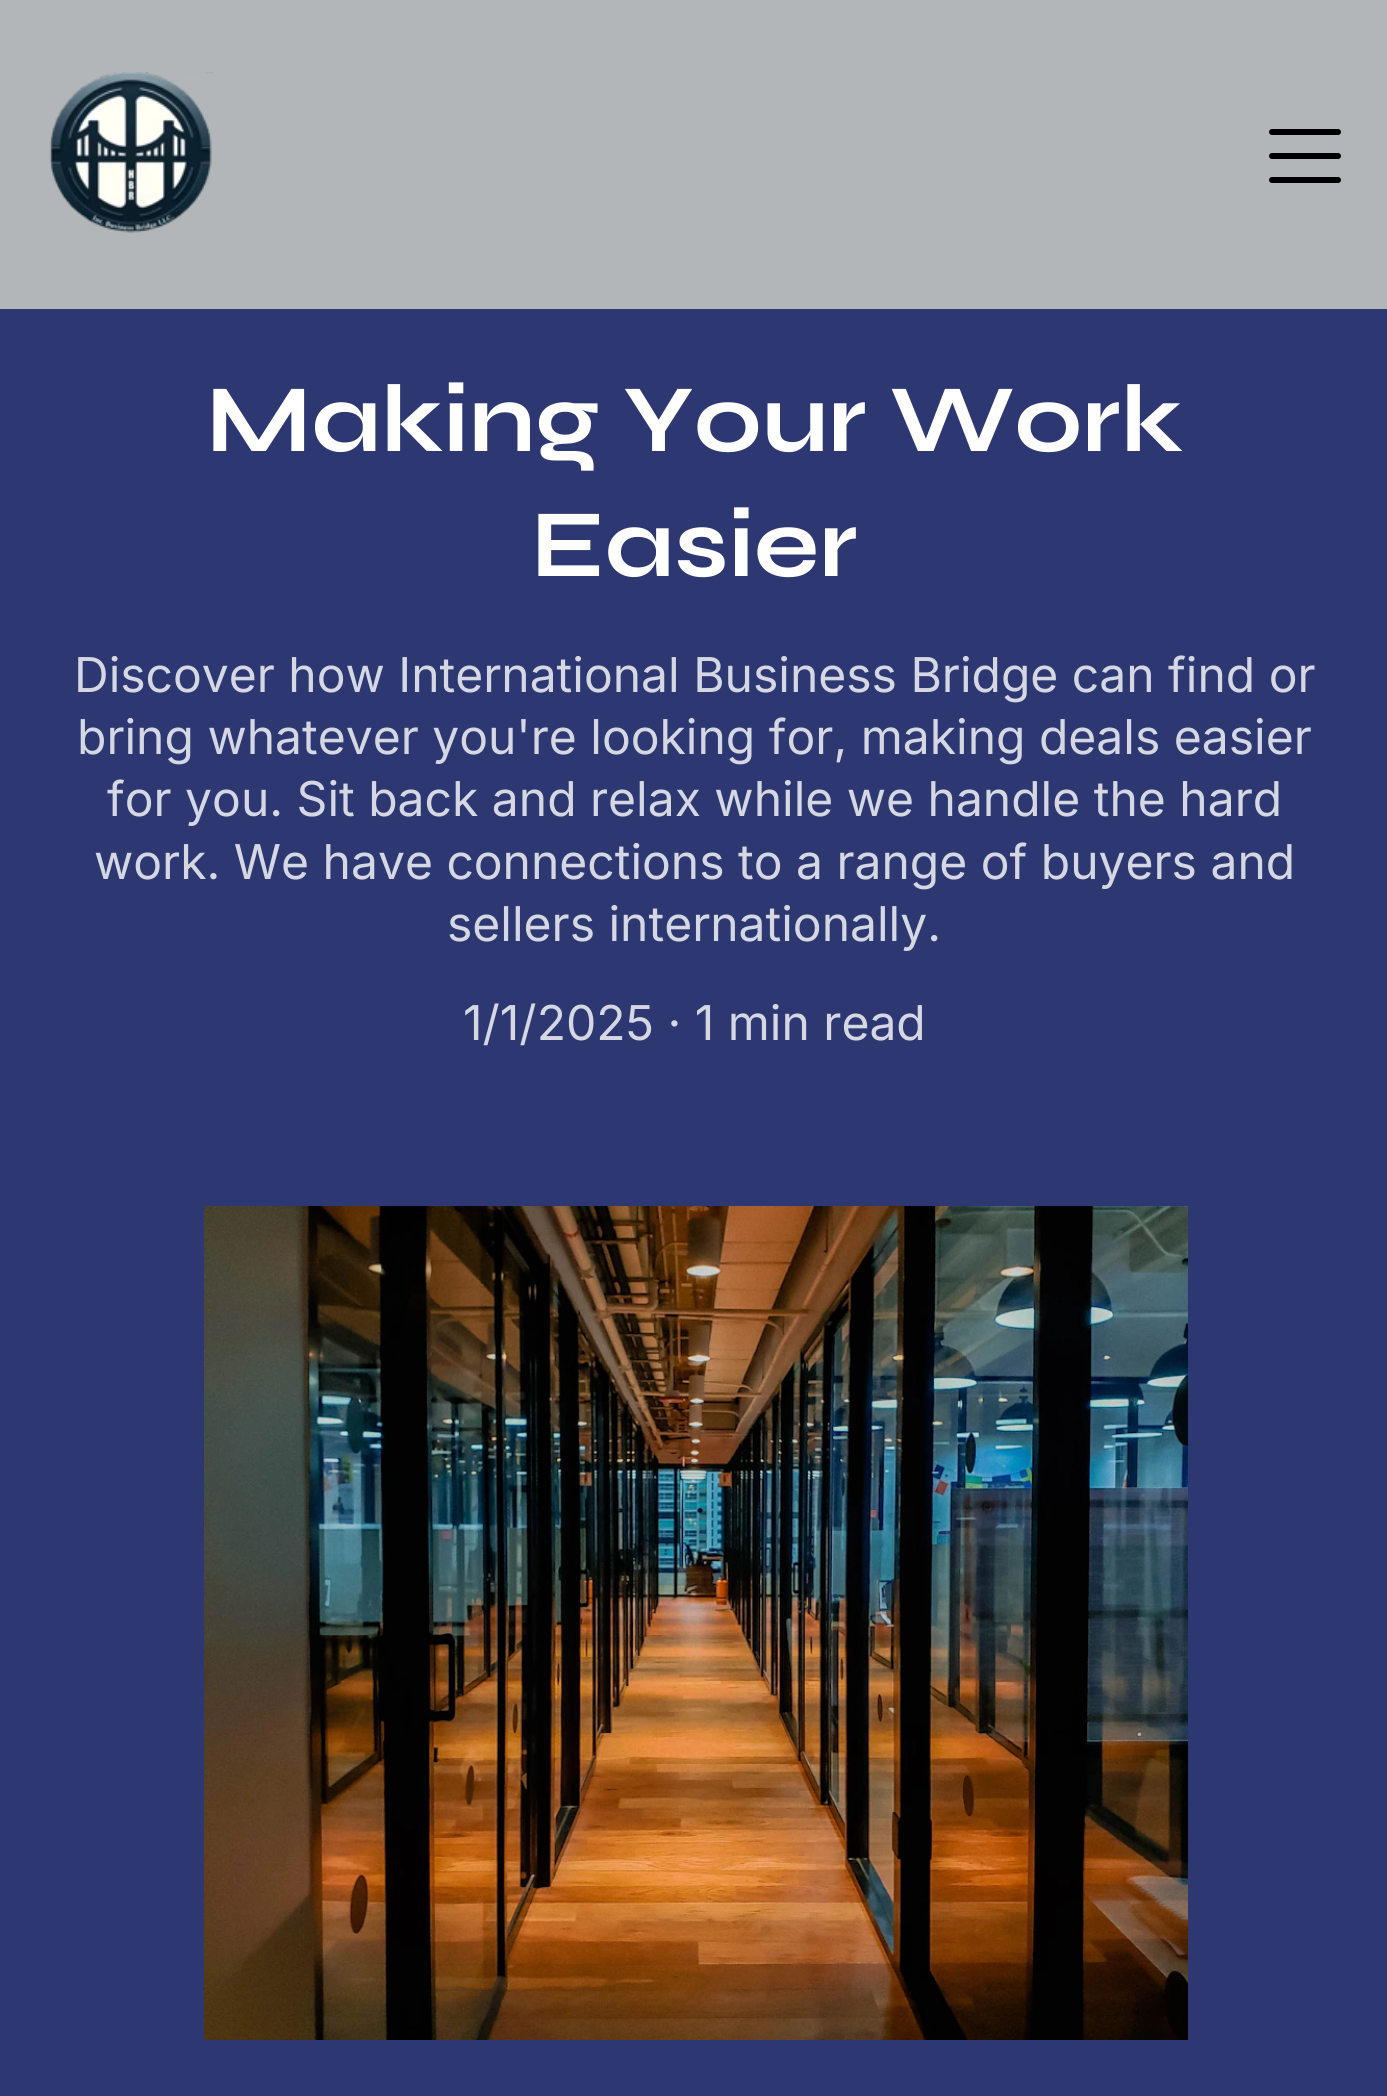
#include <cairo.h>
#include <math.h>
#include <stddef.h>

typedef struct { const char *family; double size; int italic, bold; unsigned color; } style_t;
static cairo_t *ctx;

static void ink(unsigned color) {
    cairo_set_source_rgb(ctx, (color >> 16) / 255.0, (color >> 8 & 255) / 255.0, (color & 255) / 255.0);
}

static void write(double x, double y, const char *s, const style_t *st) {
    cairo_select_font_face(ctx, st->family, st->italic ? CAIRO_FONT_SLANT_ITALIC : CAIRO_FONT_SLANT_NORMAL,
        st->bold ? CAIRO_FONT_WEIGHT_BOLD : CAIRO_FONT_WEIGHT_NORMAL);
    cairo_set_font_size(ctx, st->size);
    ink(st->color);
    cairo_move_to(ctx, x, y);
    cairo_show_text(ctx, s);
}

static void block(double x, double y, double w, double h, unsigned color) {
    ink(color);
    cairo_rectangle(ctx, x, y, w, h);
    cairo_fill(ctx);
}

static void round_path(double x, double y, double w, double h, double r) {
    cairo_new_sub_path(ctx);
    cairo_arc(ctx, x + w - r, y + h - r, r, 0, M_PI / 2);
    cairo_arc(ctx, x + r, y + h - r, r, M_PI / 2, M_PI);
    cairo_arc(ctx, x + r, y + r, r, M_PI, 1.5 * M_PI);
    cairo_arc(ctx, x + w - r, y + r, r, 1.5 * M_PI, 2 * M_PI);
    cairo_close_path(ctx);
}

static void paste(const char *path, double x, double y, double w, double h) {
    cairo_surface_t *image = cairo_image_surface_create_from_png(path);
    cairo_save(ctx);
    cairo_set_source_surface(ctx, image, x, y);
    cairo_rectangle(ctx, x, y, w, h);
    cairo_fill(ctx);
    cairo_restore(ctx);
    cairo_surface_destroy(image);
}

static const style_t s1 = {"Syne", 96, 0, 1, 0xffffff};
static const style_t s2 = {"Inter", 48, 0, 0, 0xd5d7e3};

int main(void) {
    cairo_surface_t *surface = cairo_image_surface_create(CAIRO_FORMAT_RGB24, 1387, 2096);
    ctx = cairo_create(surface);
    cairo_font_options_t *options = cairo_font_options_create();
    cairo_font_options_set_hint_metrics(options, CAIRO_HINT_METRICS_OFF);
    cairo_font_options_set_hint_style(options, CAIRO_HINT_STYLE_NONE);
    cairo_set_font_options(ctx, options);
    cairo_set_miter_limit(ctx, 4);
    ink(0x2d3873);
    cairo_paint(ctx);
    block(0, 0, 1387, 309, 0xb3b6b8);
    paste("pic1.png", 49, 72, 164, 161);
    ink(0x000000);
    round_path(1269, 129, 72, 6, 3);
    cairo_fill(ctx);
    round_path(1269, 153, 72, 6, 3);
    cairo_fill(ctx);
    round_path(1269, 177, 72, 6, 3);
    cairo_fill(ctx);
    write(206, 451, "Making Your Work", &s1);
    write(531, 576, "Easier", &s1);
    write(74, 692, "Discover how International Business Bridge can find or", &s2);
    write(77, 754, "bring whatever you're looking for, making deals easier", &s2);
    write(107, 816, "for you. Sit back and relax while we handle the hard", &s2);
    write(94, 879, "work. We have connections to a range of buyers and", &s2);
    write(447, 941, "sellers internationally.", &s2);
    write(463, 1040, "1/1/2025 · 1 min read", &s2);
    paste("pic2.png", 204, 1206, 984, 834);
    cairo_surface_write_to_png(surface, "screenshot.png");
    cairo_font_options_destroy(options);
    cairo_destroy(ctx);
    cairo_surface_destroy(surface);
    return 0;
}
